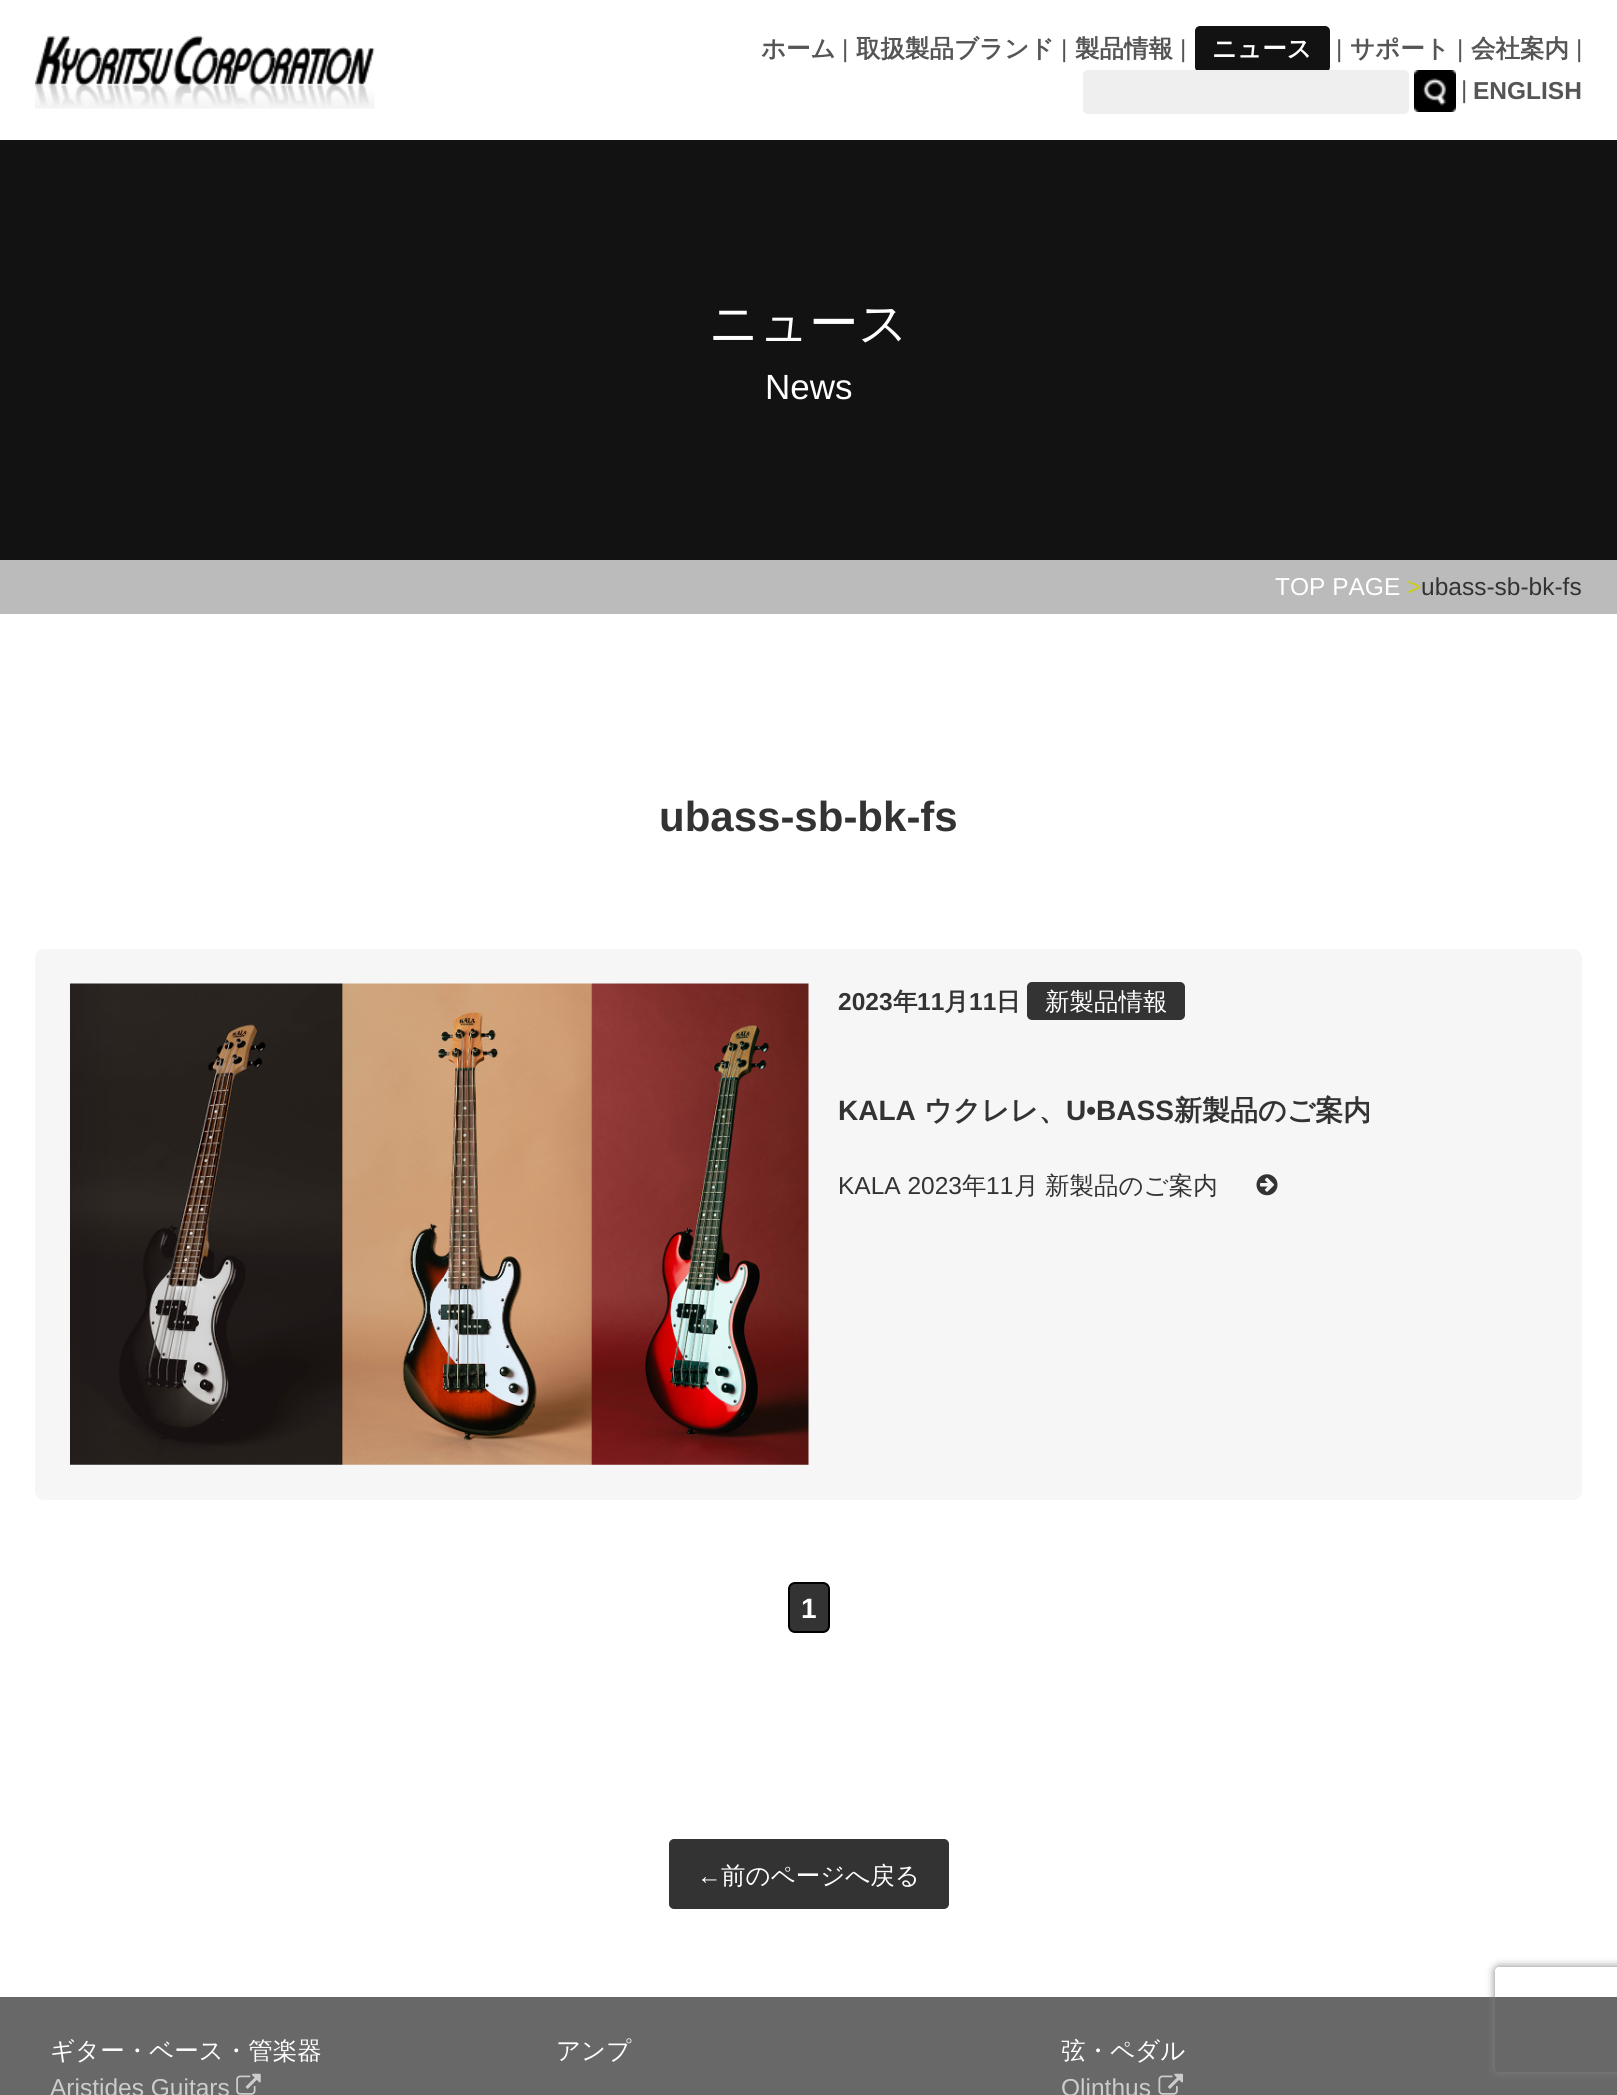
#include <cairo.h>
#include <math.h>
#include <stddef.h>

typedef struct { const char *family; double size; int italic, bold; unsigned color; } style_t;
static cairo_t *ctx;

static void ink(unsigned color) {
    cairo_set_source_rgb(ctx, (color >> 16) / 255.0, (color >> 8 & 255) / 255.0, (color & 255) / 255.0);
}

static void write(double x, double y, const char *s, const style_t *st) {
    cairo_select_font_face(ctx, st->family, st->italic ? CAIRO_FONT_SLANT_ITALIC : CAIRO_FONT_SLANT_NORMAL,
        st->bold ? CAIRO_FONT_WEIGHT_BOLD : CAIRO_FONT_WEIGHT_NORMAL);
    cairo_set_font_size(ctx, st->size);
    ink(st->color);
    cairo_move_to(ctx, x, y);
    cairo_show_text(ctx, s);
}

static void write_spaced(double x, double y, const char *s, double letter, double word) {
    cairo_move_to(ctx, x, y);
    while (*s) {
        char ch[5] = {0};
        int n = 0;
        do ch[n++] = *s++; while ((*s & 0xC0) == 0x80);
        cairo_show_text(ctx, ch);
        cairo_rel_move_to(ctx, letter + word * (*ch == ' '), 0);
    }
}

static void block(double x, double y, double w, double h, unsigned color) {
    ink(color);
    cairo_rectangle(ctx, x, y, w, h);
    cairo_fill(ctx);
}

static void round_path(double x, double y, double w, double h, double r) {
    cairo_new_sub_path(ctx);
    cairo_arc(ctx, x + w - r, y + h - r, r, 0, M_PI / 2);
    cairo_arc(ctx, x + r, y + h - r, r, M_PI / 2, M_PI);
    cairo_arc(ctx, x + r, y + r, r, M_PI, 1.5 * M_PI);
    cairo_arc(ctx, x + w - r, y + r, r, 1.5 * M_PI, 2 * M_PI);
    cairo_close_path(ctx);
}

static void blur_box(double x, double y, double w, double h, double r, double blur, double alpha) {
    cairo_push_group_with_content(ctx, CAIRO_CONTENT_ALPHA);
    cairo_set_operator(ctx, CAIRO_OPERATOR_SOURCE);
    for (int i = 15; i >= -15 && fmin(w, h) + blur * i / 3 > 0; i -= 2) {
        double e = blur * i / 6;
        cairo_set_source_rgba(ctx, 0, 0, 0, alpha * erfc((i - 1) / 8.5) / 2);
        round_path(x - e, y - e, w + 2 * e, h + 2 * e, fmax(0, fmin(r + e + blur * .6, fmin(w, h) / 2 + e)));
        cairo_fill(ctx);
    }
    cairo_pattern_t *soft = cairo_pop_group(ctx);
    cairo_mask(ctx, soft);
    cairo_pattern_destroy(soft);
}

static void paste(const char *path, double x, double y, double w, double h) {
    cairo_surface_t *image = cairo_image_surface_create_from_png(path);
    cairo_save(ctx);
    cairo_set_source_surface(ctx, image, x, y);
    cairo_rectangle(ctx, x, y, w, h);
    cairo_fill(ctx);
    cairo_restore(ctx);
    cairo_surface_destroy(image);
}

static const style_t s1 = {"WenQuanYi Zen Hei", 24.5, 0, 1, 0x555555};
static const style_t s2 = {"Liberation Sans", 24.5, 0, 0, 0x555555};
static const style_t s3 = {"WenQuanYi Zen Hei", 24.5, 0, 1, 0xffffff};
static const style_t s4 = {"Liberation Sans", 24.5, 0, 1, 0x555555};
static const style_t s5 = {"WenQuanYi Zen Hei Medium", 49, 0, 0, 0xffffff};
static const style_t s6 = {"Liberation Sans", 35, 0, 0, 0xffffff};
static const style_t s7 = {"Liberation Sans", 24.5, 0, 0, 0xffffff};
static const style_t s8 = {"Liberation Sans", 24.5, 0, 0, 0xcccc11};
static const style_t s9 = {"Liberation Sans", 24.5, 0, 0, 0x333333};
static const style_t s10 = {"Liberation Sans", 42, 0, 1, 0x333333};
static const style_t s11 = {"Liberation Sans", 24.5, 0, 1, 0x333333};
static const style_t s12 = {"WenQuanYi Zen Hei", 24.5, 0, 1, 0x333333};
static const style_t s13 = {"WenQuanYi Zen Hei Medium", 24.5, 0, 0, 0xffffff};
static const style_t s14 = {"Liberation Sans", 28, 0, 1, 0x333333};
static const style_t s15 = {"WenQuanYi Zen Hei", 28, 0, 1, 0x333333};
static const style_t s16 = {"WenQuanYi Zen Hei Medium", 24.5, 0, 0, 0x333333};
static const style_t s17 = {"Liberation Sans", 28, 0, 1, 0xffffff};
static const style_t s18 = {"Liberation Sans", 24.5, 0, 0, 0xcccccc};

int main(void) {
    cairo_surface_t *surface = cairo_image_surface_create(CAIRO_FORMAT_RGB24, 1617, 2095);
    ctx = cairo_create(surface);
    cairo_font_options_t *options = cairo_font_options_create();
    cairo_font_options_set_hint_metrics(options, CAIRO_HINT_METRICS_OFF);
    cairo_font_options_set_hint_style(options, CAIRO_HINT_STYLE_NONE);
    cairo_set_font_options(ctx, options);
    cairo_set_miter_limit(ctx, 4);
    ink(0xffffff);
    cairo_paint(ctx);
    paste("pic1.png", 35, 35, 340, 74);
    write(761, 57, "ホーム", &s1);
    write(842, 57, "|", &s2);
    write(856, 57, "取扱製品ブランド", &s1);
    write(1061, 57, "|", &s2);
    write(1075, 57, "製品情報", &s1);
    write(1180, 57, "|", &s2);
    ink(0x121212);
    round_path(1195, 26, 135, 46, 5);
    cairo_fill(ctx);
    write(1212, 57, "ニュース", &s3);
    write(1336, 57, "|", &s2);
    write(1350, 57, "サポート", &s1);
    write(1457, 57, "|", &s2);
    write(1471, 57, "会社案内", &s1);
    write(1576, 57, "|", &s2);
    ink(0xefefef);
    round_path(1083, 70, 326, 44, 5);
    cairo_fill(ctx);
    paste("pic2.png", 1414, 70, 42, 42);
    ink(0x555555);
    write_spaced(1461, 98, "|", -2, 0);
    write(1473, 99, "ENGLISH", &s4);
    block(0, 140, 1617, 420, 0x121212);
    write(709, 340, "ニュース", &s5);
    write(765, 399, "News", &s6);
    block(0, 560, 1617, 54, 0xbbbbbb);
    write(1275, 595, "TOP PAGE", &s7);
    write(1407, 595, ">", &s8);
    write(1421, 595, "ubass-sb-bk-fs", &s9);
    write(659, 831, "ubass-sb-bk-fs", &s10);
    ink(0xf6f6f6);
    round_path(35, 949, 1547, 551, 9);
    cairo_fill(ctx);
    paste("pic3.png", 70, 983, 739, 482);
    write(838, 1010, "2023", &s11);
    write(893, 1010, "年", &s12);
    write(917, 1010, "11", &s11);
    write(944, 1010, "月", &s12);
    write(969, 1010, "11", &s11);
    write(996, 1010, "日", &s12);
    round_path(1027, 982, 158, 38, 5);
    cairo_fill(ctx);
    write(1045, 1010, "新製品情報", &s13);
    write(838, 1120, "KALA", &s14);
    write(924, 1120, "ウクレレ、", &s15);
    write(1066, 1120, "U•BASS", &s14);
    write(1174, 1120, "新製品のご案内", &s15);
    write(838, 1194, "KALA 2023", &s9);
    write(962, 1194, "年", &s16);
    write(986, 1194, "11", &s9);
    write(1014, 1194, "月", &s16);
    write(1045, 1194, "新製品のご案内", &s16);
    paste("pic4.png", 1256, 1174, 22, 22);
    round_path(789, 1583, 40, 49, 6);
    cairo_fill_preserve(ctx);
    ink(0x000000);
    cairo_stroke(ctx);
    write(801, 1618, "1", &s17);
    ink(0x333333);
    round_path(670, 1840, 278, 68, 4);
    cairo_fill_preserve(ctx);
    cairo_stroke(ctx);
    write(697, 1884, "←", &s7);
    write(721, 1884, "前のページへ戻る", &s13);
    block(0, 1997, 1617, 98, 0x686868);
    write(50, 2059, "ギター・ベース・管楽器", &s13);
    write(50, 2096, "Aristides Guitars", &s18);
    paste("pic5.png", 236, 2073, 25, 22);
    write(556, 2059, "アンプ", &s13);
    write(1061, 2059, "弦・ペダル", &s13);
    write(1061, 2096, "Olinthus", &s18);
    paste("pic6.png", 1158, 2073, 25, 22);
    cairo_save(ctx);
    cairo_set_fill_rule(ctx, CAIRO_FILL_RULE_EVEN_ODD);
    cairo_new_path(ctx);
    cairo_move_to(ctx, 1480, 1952);
    cairo_line_to(ctx, 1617, 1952);
    cairo_line_to(ctx, 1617, 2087);
    cairo_line_to(ctx, 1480, 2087);
    cairo_close_path(ctx);
    cairo_move_to(ctx, 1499, 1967);
    cairo_line_to(ctx, 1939, 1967);
    cairo_curve_to(ctx, 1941, 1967, 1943, 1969, 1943, 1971);
    cairo_line_to(ctx, 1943, 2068);
    cairo_curve_to(ctx, 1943, 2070, 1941, 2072, 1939, 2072);
    cairo_line_to(ctx, 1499, 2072);
    cairo_curve_to(ctx, 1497, 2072, 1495, 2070, 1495, 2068);
    cairo_line_to(ctx, 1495, 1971);
    cairo_curve_to(ctx, 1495, 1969, 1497, 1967, 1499, 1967);
    cairo_close_path(ctx);
    cairo_clip(ctx);
    ink(0x808080);
    blur_box(1495, 1967, 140, 105, 4, 4.5, 1);
    cairo_restore(ctx);
    cairo_surface_write_to_png(surface, "screenshot.png");
    cairo_font_options_destroy(options);
    cairo_destroy(ctx);
    cairo_surface_destroy(surface);
    return 0;
}
